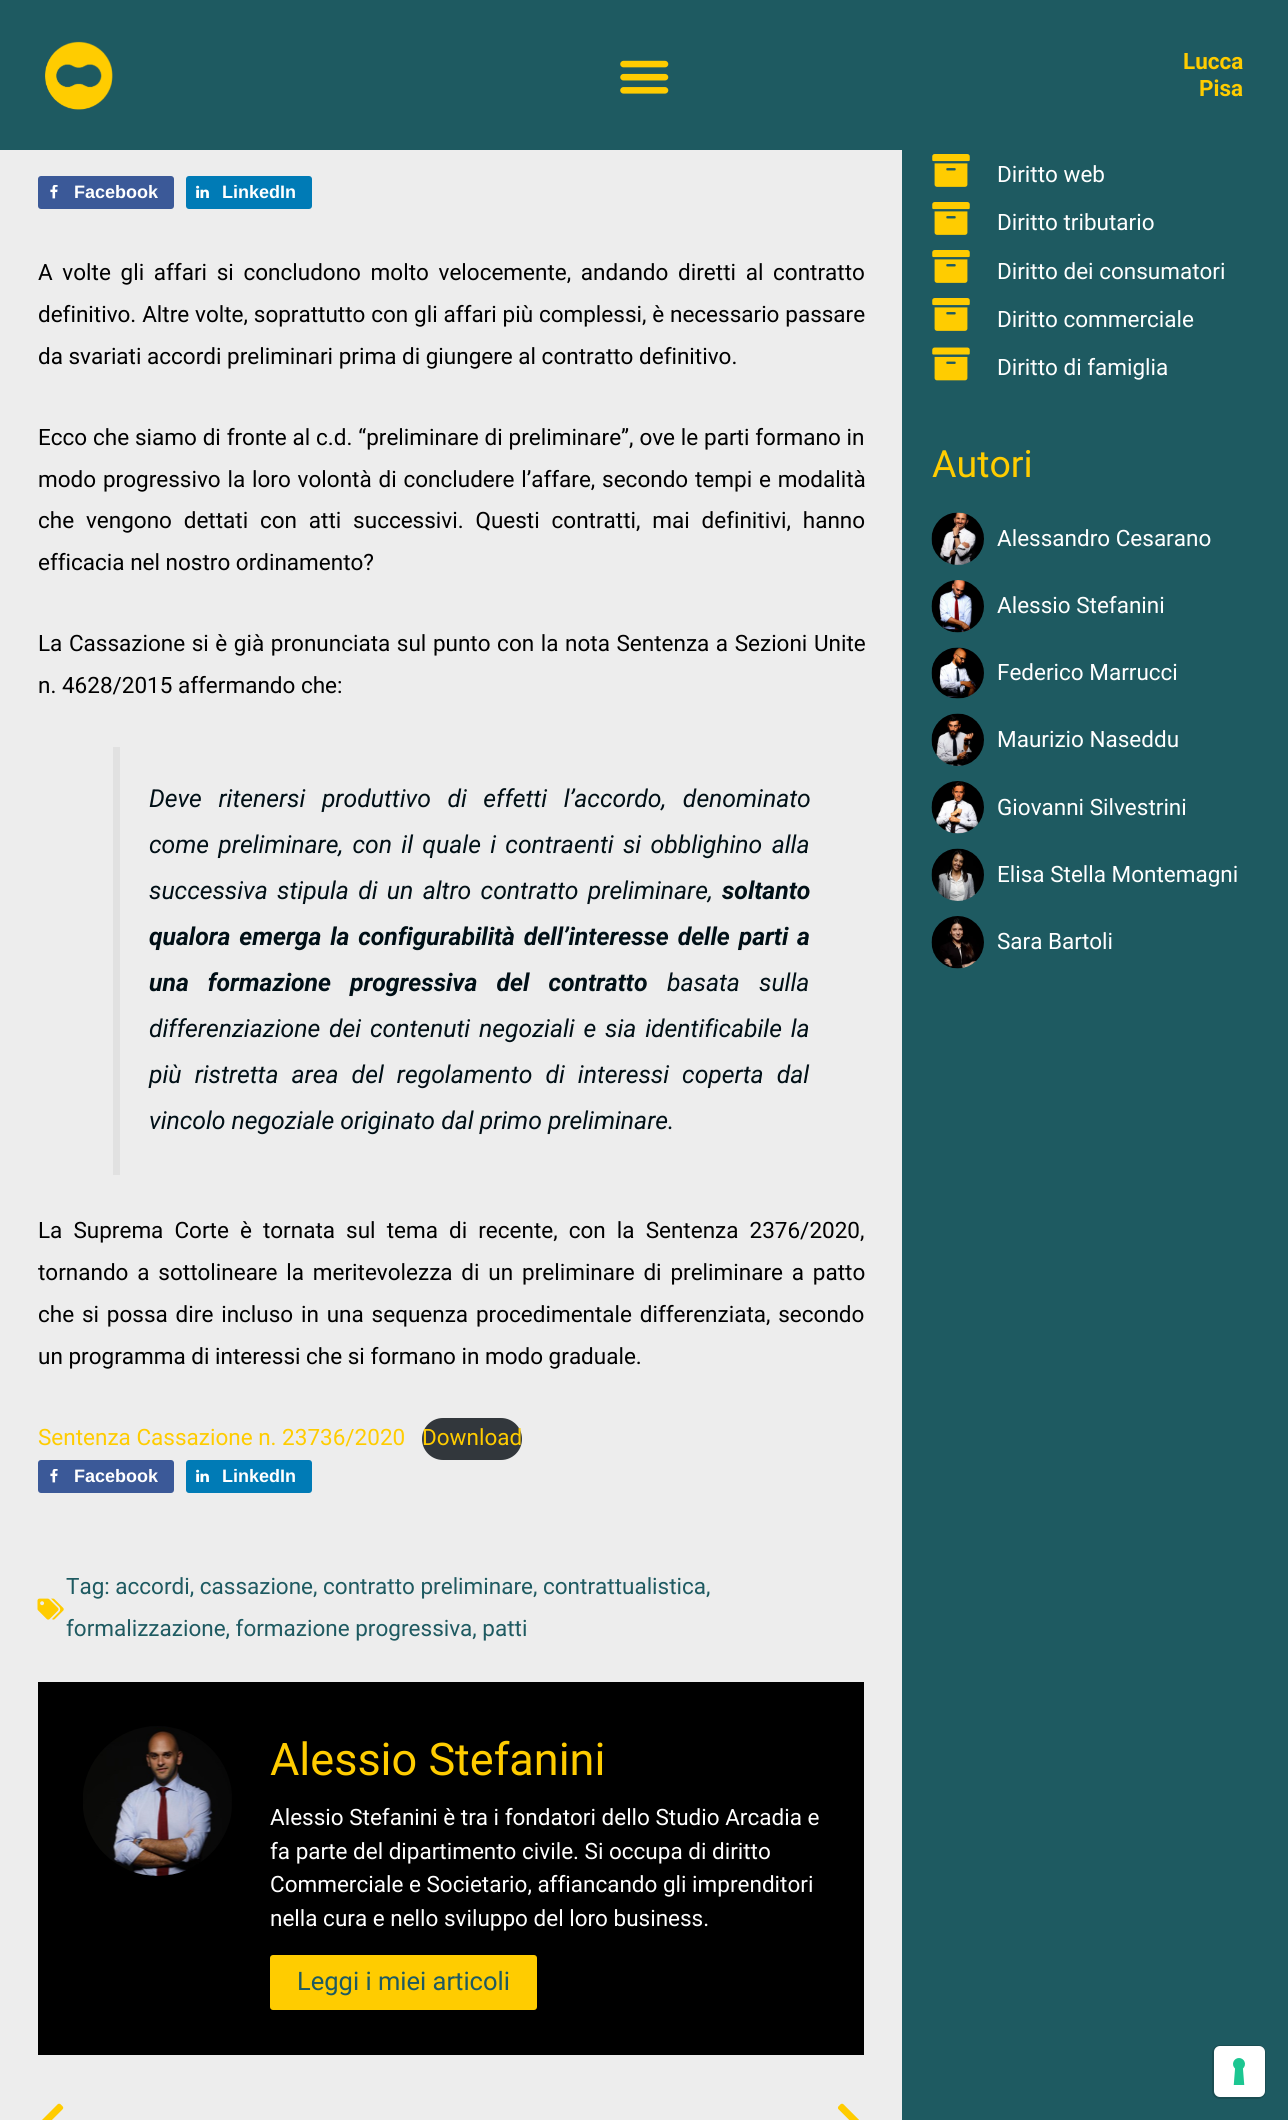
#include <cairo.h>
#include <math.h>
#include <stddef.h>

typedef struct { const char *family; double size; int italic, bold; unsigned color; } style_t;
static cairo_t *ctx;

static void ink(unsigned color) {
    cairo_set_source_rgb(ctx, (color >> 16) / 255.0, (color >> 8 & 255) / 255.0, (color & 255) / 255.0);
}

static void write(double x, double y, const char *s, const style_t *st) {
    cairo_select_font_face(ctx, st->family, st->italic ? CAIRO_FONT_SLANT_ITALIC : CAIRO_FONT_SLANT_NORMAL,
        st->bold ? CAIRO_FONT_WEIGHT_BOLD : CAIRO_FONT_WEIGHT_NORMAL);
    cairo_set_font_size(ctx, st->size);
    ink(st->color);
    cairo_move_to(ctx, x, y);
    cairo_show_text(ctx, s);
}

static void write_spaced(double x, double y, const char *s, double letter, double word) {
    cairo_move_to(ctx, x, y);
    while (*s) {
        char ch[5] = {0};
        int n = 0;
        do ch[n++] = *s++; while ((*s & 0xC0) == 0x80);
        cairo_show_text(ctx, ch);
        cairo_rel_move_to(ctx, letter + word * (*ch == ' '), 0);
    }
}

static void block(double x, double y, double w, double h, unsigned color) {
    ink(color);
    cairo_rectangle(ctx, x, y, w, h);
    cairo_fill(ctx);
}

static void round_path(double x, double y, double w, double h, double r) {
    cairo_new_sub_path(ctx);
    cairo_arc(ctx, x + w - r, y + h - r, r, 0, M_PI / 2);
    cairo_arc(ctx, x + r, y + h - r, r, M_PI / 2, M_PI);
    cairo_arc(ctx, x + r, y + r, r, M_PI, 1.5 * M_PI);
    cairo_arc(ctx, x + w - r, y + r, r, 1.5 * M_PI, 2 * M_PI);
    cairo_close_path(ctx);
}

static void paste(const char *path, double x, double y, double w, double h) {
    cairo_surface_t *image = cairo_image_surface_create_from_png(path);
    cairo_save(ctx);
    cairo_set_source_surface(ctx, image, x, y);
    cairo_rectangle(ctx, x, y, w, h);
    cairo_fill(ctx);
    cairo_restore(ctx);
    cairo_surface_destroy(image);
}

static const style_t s1 = {"Roboto", 22.5, 0, 1, 0xffcc00};
static const style_t s2 = {"Liberation Sans", 18, 0, 1, 0xffffff};
static const style_t s3 = {"Roboto", 22.5, 0, 0, 0x000000};
static const style_t s4 = {"Roboto", 24.75, 1, 1, 0x000f16};
static const style_t s5 = {"Roboto", 24.75, 1, 0, 0x000f16};
static const style_t s6 = {"Roboto", 22.5, 0, 0, 0xffcc00};
static const style_t s7 = {"Roboto", 22.5, 0, 0, 0x1e5a61};
static const style_t s8 = {"Roboto", 45, 0, 0, 0xffcc00};
static const style_t s9 = {"Roboto", 22.5, 0, 0, 0xffffff};
static const style_t s10 = {"Roboto", 25.5, 0, 0, 0x1e5a61};
static const style_t s11 = {"Roboto", 37.5, 0, 0, 0xffcc00};

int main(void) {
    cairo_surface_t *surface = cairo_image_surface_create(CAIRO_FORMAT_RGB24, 1288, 2120);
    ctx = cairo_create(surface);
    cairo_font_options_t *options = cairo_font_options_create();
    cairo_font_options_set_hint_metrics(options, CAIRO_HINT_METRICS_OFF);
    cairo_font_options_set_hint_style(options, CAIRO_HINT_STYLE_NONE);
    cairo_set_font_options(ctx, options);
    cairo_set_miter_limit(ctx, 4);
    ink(0xededed);
    cairo_paint(ctx);
    block(0, 0, 1288, 150, 0x1e5a61);
    paste("pic1.png", 45, 41, 68, 69);
    paste("pic2.png", 620, 60, 49, 34);
    write(1183, 69, "Lucca", &s1);
    write(1199, 96, "Pisa", &s1);
    ink(0x3b5998);
    round_path(38, 176, 136, 33, 3);
    cairo_fill(ctx);
    paste("pic3.png", 50, 185, 8, 14);
    write(74, 198, "Facebook", &s2);
    ink(0x007bb6);
    round_path(186, 176, 126, 33, 3);
    cairo_fill(ctx);
    paste("pic4.png", 196, 185, 13, 13);
    write(222, 198, "LinkedIn", &s2);
    cairo_select_font_face(ctx, "Roboto", CAIRO_FONT_SLANT_NORMAL, CAIRO_FONT_WEIGHT_NORMAL);
    cairo_set_font_size(ctx, 22.5);
    ink(0x000000);
    write_spaced(38, 280, "A volte gli affari si concludono molto velocemente, andando diretti al contratto", 0, 4.1);
    write_spaced(38, 322, "definitivo. Altre volte, soprattutto con gli affari più complessi, è necessario passare", 0, 0.25);
    write(38, 364, "da svariati accordi preliminari prima di giungere al contratto definitivo.", &s3);
    write_spaced(38, 445, "Ecco che siamo di fronte al c.d. “preliminare di preliminare”, ove le parti formano in", 0, 0.25);
    write_spaced(38, 487, "modo progressivo la loro volontà di concludere l’affare, secondo tempi e modalità", 0, 1.25);
    write_spaced(38, 528, "che vengono dettati con atti successivi. Questi contratti, mai definitivi, hanno", 0, 6.25);
    write(38, 570, "efficacia nel nostro ordinamento?", &s3);
    write_spaced(38, 651, "La Cassazione si è già pronunciata sul punto con la nota Sentenza a Sezioni Unite", 0, 1);
    write(38, 693, "n. 4628/2015 affermando che:", &s3);
    block(113, 747, 7, 428, 0xe1e1e1);
    cairo_select_font_face(ctx, "Roboto", CAIRO_FONT_SLANT_ITALIC, CAIRO_FONT_WEIGHT_NORMAL);
    cairo_set_font_size(ctx, 24.75);
    ink(0x000f16);
    write_spaced(149, 807, "Deve ritenersi produttivo di effetti l’accordo, denominato", 0, 10.5);
    write_spaced(149, 853, "come preliminare, con il quale i contraenti si obblighino alla", 0, 3.25);
    write_spaced(149, 899, "successiva stipula di un altro contratto preliminare,", 0, 3.25);
    write(722, 899, "soltanto", &s4);
    write_spaced(149, 945, "qualora emerga la configurabilità dell’interesse delle parti a", 0, 2.75);
    write_spaced(149, 991, "una formazione progressiva del contratto", 0, 13);
    cairo_select_font_face(ctx, "Roboto", CAIRO_FONT_SLANT_ITALIC, CAIRO_FONT_WEIGHT_NORMAL);
    write_spaced(667, 991, "basata sulla", 0, 13);
    write_spaced(149, 1037, "differenziazione dei contenuti negoziali e sia identificabile la", 0, 2.75);
    write_spaced(149, 1083, "più ristretta area del regolamento di interessi coperta dal", 0, 7);
    write(149, 1129, "vincolo negoziale originato dal primo preliminare.", &s5);
    cairo_select_font_face(ctx, "Roboto", CAIRO_FONT_SLANT_NORMAL, CAIRO_FONT_WEIGHT_NORMAL);
    cairo_set_font_size(ctx, 22.5);
    ink(0x000000);
    write_spaced(38, 1238, "La Suprema Corte è tornata sul tema di recente, con la Sentenza 2376/2020,", 0, 5.5);
    write_spaced(38, 1280, "tornando a sottolineare la meritevolezza di un preliminare di preliminare a patto", 0, 3.25);
    write_spaced(38, 1322, "che si possa dire incluso in una sequenza procedimentale differenziata, secondo", 0, 2.25);
    write(38, 1364, "un programma di interessi che si formano in modo graduale.", &s3);
    write(38, 1445, "Sentenza Cassazione n. 23736/2020", &s6);
    ink(0x32373c);
    round_path(422, 1418, 100, 42, 21);
    cairo_fill(ctx);
    write(422, 1445, "Download", &s6);
    ink(0x3b5998);
    round_path(38, 1460, 136, 33, 3);
    cairo_fill(ctx);
    paste("pic3.png", 50, 1469, 8, 14);
    write(74, 1482, "Facebook", &s2);
    ink(0x007bb6);
    round_path(186, 1460, 126, 33, 3);
    cairo_fill(ctx);
    paste("pic4.png", 196, 1469, 13, 13);
    write(222, 1482, "LinkedIn", &s2);
    paste("pic5.png", 37, 1598, 27, 22);
    write(66, 1594, "Tag: accordi, cassazione, contratto preliminare, contrattualistica,", &s7);
    write(66, 1636, "formalizzazione, formazione progressiva, patti", &s7);
    block(38, 1682, 826, 373, 0x000000);
    paste("pic6.png", 83, 1726, 149, 150);
    write(270, 1775, "Alessio Stefanini", &s8);
    write(270, 1825, "Alessio Stefanini è tra i fondatori dello Studio Arcadia e", &s9);
    write(270, 1859, "fa parte del dipartimento civile. Si occupa di diritto", &s9);
    write(270, 1892, "Commerciale e Societario, affiancando gli imprenditori", &s9);
    write(270, 1926, "nella cura e nello sviluppo del loro business.", &s9);
    ink(0xffcc00);
    round_path(270, 1955, 267, 55, 3);
    cairo_fill(ctx);
    write(297, 1990, "Leggi i miei articoli", &s10);
    paste("pic7.png", 42, 2103, 22, 17);
    paste("pic8.png", 837, 2103, 22, 17);
    block(902, 150, 386, 1970, 0x1e5a61);
    paste("pic9.png", 932, 154, 38, 33);
    write(997, 182, "Diritto web", &s9);
    paste("pic9.png", 932, 202, 38, 33);
    write(997, 230, "Diritto tributario", &s9);
    paste("pic9.png", 932, 250, 38, 33);
    write(997, 279, "Diritto dei consumatori", &s9);
    paste("pic9.png", 932, 298, 38, 33);
    write(997, 327, "Diritto commerciale", &s9);
    paste("pic10.png", 932, 347, 38, 34);
    write(997, 375, "Diritto di famiglia", &s9);
    write(932, 477, "Autori", &s11);
    paste("pic11.png", 931, 512, 53, 53);
    write(997, 546, "Alessandro Cesarano", &s9);
    paste("pic12.png", 931, 580, 53, 53);
    write(997, 613, "Alessio Stefanini", &s9);
    paste("pic13.png", 931, 647, 53, 52);
    write(997, 680, "Federico Marrucci", &s9);
    paste("pic14.png", 931, 713, 53, 53);
    write(997, 747, "Maurizio Naseddu", &s9);
    paste("pic15.png", 931, 781, 53, 53);
    write(997, 815, "Giovanni Silvestrini", &s9);
    paste("pic16.png", 931, 848, 53, 53);
    write(997, 882, "Elisa Stella Montemagni", &s9);
    paste("pic17.png", 931, 916, 53, 53);
    write(997, 949, "Sara Bartoli", &s9);
    round_path(1213, 2046, 52, 52, 7);
    ink(0x1a4d52);
    cairo_stroke(ctx);
    ink(0xffffff);
    round_path(1214, 2046, 51, 51, 6);
    cairo_fill(ctx);
    paste("pic18.png", 1233, 2058, 12, 27);
    cairo_surface_write_to_png(surface, "screenshot.png");
    cairo_font_options_destroy(options);
    cairo_destroy(ctx);
    cairo_surface_destroy(surface);
    return 0;
}
